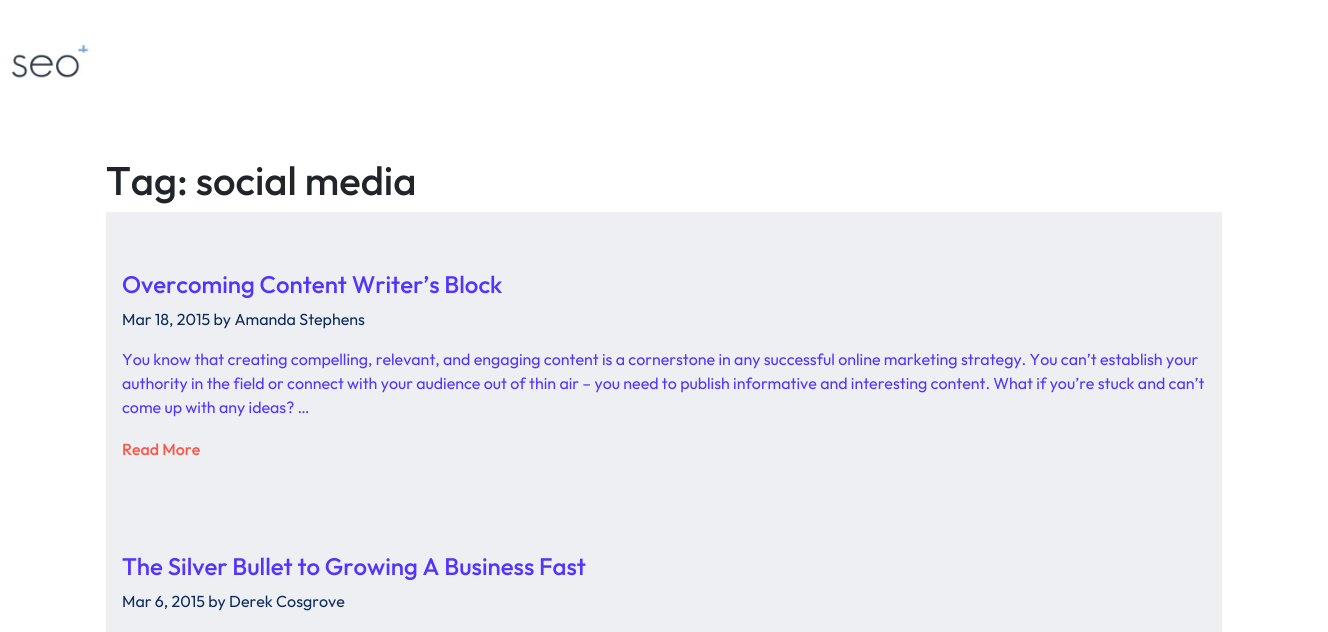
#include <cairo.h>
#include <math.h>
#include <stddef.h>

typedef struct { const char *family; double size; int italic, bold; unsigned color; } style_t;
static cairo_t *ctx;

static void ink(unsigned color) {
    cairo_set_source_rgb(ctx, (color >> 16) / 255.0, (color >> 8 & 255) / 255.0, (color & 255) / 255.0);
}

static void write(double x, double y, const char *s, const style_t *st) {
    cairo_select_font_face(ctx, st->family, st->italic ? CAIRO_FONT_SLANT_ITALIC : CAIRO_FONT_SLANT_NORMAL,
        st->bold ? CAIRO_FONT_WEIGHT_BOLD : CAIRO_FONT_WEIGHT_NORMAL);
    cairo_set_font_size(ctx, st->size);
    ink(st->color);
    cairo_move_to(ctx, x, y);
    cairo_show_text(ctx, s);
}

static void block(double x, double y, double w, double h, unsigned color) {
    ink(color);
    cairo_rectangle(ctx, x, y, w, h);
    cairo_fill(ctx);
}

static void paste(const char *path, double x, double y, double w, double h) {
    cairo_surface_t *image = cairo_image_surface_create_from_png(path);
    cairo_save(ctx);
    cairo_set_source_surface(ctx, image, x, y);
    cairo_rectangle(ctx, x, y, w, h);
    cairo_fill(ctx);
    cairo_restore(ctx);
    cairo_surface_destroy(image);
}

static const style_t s1 = {"Outfit Medium", 40, 0, 0, 0x212529};
static const style_t s2 = {"Outfit Medium", 24, 0, 0, 0x5533ff};
static const style_t s3 = {"Outfit", 16, 0, 0, 0x0e2b5c};
static const style_t s4 = {"Outfit", 16, 0, 0, 0x5533ff};
static const style_t s5 = {"Outfit Medium", 16, 0, 0, 0xfc5546};

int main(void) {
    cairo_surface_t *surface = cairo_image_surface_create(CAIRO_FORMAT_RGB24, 1328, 632);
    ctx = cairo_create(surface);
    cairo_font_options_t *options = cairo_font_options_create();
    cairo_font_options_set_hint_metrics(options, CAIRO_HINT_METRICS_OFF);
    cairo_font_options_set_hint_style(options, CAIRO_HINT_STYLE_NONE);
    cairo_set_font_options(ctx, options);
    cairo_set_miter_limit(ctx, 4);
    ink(0xffffff);
    cairo_paint(ctx);
    paste("pic1.png", 12, 45, 77, 33);
    write(106, 195, "Tag: social media", &s1);
    block(106, 212, 1116, 420, 0xedeff2);
    write(122, 293, "Overcoming Content Writer’s Block", &s2);
    write(122, 325, "Mar 18, 2015 by Amanda Stephens", &s3);
    write(122, 365, "You know that creating compelling, relevant, and engaging content is a cornerstone in any successful online marketing strategy. You can’t establish your", &s4);
    write(122, 389, "authority in the field or connect with your audience out of thin air – you need to publish informative and interesting content. What if you’re stuck and can’t", &s4);
    write(122, 413, "come up with any ideas? …", &s4);
    write(122, 455, "Read More", &s5);
    write(122, 575, "The Silver Bullet to Growing A Business Fast", &s2);
    write(122, 607, "Mar 6, 2015 by Derek Cosgrove", &s3);
    cairo_surface_write_to_png(surface, "screenshot.png");
    cairo_font_options_destroy(options);
    cairo_destroy(ctx);
    cairo_surface_destroy(surface);
    return 0;
}
